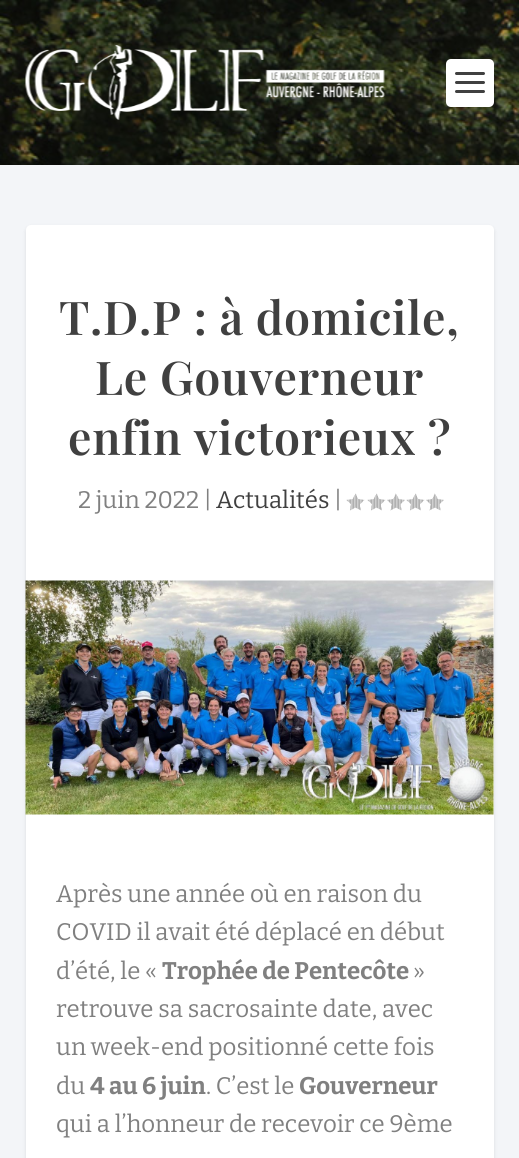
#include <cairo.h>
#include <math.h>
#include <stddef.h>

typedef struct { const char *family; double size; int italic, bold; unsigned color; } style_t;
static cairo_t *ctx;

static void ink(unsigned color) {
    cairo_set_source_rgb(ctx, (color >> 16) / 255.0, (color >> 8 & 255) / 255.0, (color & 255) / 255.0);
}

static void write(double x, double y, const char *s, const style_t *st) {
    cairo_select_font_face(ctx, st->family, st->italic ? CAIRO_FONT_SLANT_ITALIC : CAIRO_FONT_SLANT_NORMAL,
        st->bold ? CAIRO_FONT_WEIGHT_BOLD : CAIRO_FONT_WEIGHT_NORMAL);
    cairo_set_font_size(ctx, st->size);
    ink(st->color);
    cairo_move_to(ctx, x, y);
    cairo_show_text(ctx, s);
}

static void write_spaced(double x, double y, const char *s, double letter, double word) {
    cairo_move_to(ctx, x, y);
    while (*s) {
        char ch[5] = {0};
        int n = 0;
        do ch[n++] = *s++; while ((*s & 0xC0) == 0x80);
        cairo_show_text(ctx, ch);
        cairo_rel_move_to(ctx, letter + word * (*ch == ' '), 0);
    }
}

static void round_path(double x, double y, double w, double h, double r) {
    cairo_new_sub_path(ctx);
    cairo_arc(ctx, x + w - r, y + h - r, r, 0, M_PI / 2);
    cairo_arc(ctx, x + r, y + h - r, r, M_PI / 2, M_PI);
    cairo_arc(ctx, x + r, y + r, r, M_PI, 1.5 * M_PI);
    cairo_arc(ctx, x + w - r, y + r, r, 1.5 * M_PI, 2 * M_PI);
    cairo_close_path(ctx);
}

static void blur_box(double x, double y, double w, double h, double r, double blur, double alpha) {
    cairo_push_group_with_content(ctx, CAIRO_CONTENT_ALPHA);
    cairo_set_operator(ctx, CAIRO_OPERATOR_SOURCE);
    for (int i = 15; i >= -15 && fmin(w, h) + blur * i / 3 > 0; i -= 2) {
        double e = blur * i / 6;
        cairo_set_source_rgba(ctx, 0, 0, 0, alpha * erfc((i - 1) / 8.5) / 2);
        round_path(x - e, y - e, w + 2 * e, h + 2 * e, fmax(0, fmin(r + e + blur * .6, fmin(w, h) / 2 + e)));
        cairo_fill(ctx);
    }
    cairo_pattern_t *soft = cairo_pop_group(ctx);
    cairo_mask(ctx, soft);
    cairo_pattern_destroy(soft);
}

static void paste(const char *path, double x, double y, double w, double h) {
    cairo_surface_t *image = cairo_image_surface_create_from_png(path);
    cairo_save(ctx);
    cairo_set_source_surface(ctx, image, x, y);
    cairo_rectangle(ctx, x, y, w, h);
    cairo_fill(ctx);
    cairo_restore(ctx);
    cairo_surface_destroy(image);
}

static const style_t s1 = {"Bitter", 24, 0, 0, 0x808080};
static const style_t s2 = {"Bitter", 24, 0, 0, 0x404040};
static const style_t s3 = {"Bitter", 24, 0, 1, 0x808080};

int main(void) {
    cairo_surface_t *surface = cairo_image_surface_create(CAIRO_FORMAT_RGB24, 519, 1158);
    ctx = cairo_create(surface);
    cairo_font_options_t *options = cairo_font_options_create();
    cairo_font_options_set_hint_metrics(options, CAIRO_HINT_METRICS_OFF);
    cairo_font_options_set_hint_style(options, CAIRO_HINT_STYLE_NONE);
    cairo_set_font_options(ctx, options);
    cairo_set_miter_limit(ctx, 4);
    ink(0xf3f5f8);
    cairo_paint(ctx);
    paste("pic1.png", 0, 0, 519, 165);
    paste("pic2.png", 25, 45, 360, 75);
    ink(0xffffff);
    round_path(446, 59, 48, 48, 5);
    cairo_fill(ctx);
    ink(0x404040);
    round_path(455, 72, 30, 3, 1.5);
    cairo_fill(ctx);
    round_path(455, 81, 30, 3, 1.5);
    cairo_fill(ctx);
    round_path(455, 90, 30, 3, 1.5);
    cairo_fill(ctx);
    ink(0x000000);
    blur_box(26, 227, 468, 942, 5, 2, 0.1);
    ink(0xffffff);
    round_path(26, 225, 468, 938, 5);
    cairo_fill(ctx);
    cairo_select_font_face(ctx, "Playfair Display SemiBold", CAIRO_FONT_SLANT_NORMAL, CAIRO_FONT_WEIGHT_NORMAL);
    cairo_set_font_size(ctx, 46.5);
    ink(0x404040);
    write_spaced(59, 335, "T.D.P : à domicile,", 0.75, 0);
    write_spaced(95, 395, "Le Gouverneur", 0.75, 0);
    write_spaced(68, 455, "enfin victorieux ?", 0.75, 0);
    write(78, 508, "2 juin 2022 |", &s1);
    write(216, 508, "Actualités", &s2);
    write(334, 508, "|", &s1);
    paste("pic3.png", 346, 493, 19, 18);
    paste("pic3.png", 367, 493, 19, 18);
    paste("pic4.png", 387, 493, 18, 18);
    paste("pic3.png", 406, 493, 19, 18);
    paste("pic4.png", 426, 493, 18, 18);
    paste("pic5.png", 25, 580, 469, 235);
    write(56, 902, "Après une année où en raison du", &s1);
    write(56, 940, "COVID il avait été déplacé en début", &s1);
    write(56, 979, "d’été, le «", &s1);
    write(162, 979, "Trophée de Pentecôte", &s3);
    write(413, 979, "»", &s1);
    write(56, 1017, "retrouve sa sacrosainte date, avec", &s1);
    write(56, 1055, "un week-end positionné cette fois", &s1);
    write(56, 1094, "du", &s1);
    write(90, 1094, "4 au 6 juin", &s3);
    write(206, 1094, ". C’est le", &s1);
    write(299, 1094, "Gouverneur", &s3);
    write(56, 1132, "qui a l’honneur de recevoir ce 9ème", &s1);
    cairo_surface_write_to_png(surface, "screenshot.png");
    cairo_font_options_destroy(options);
    cairo_destroy(ctx);
    cairo_surface_destroy(surface);
    return 0;
}
